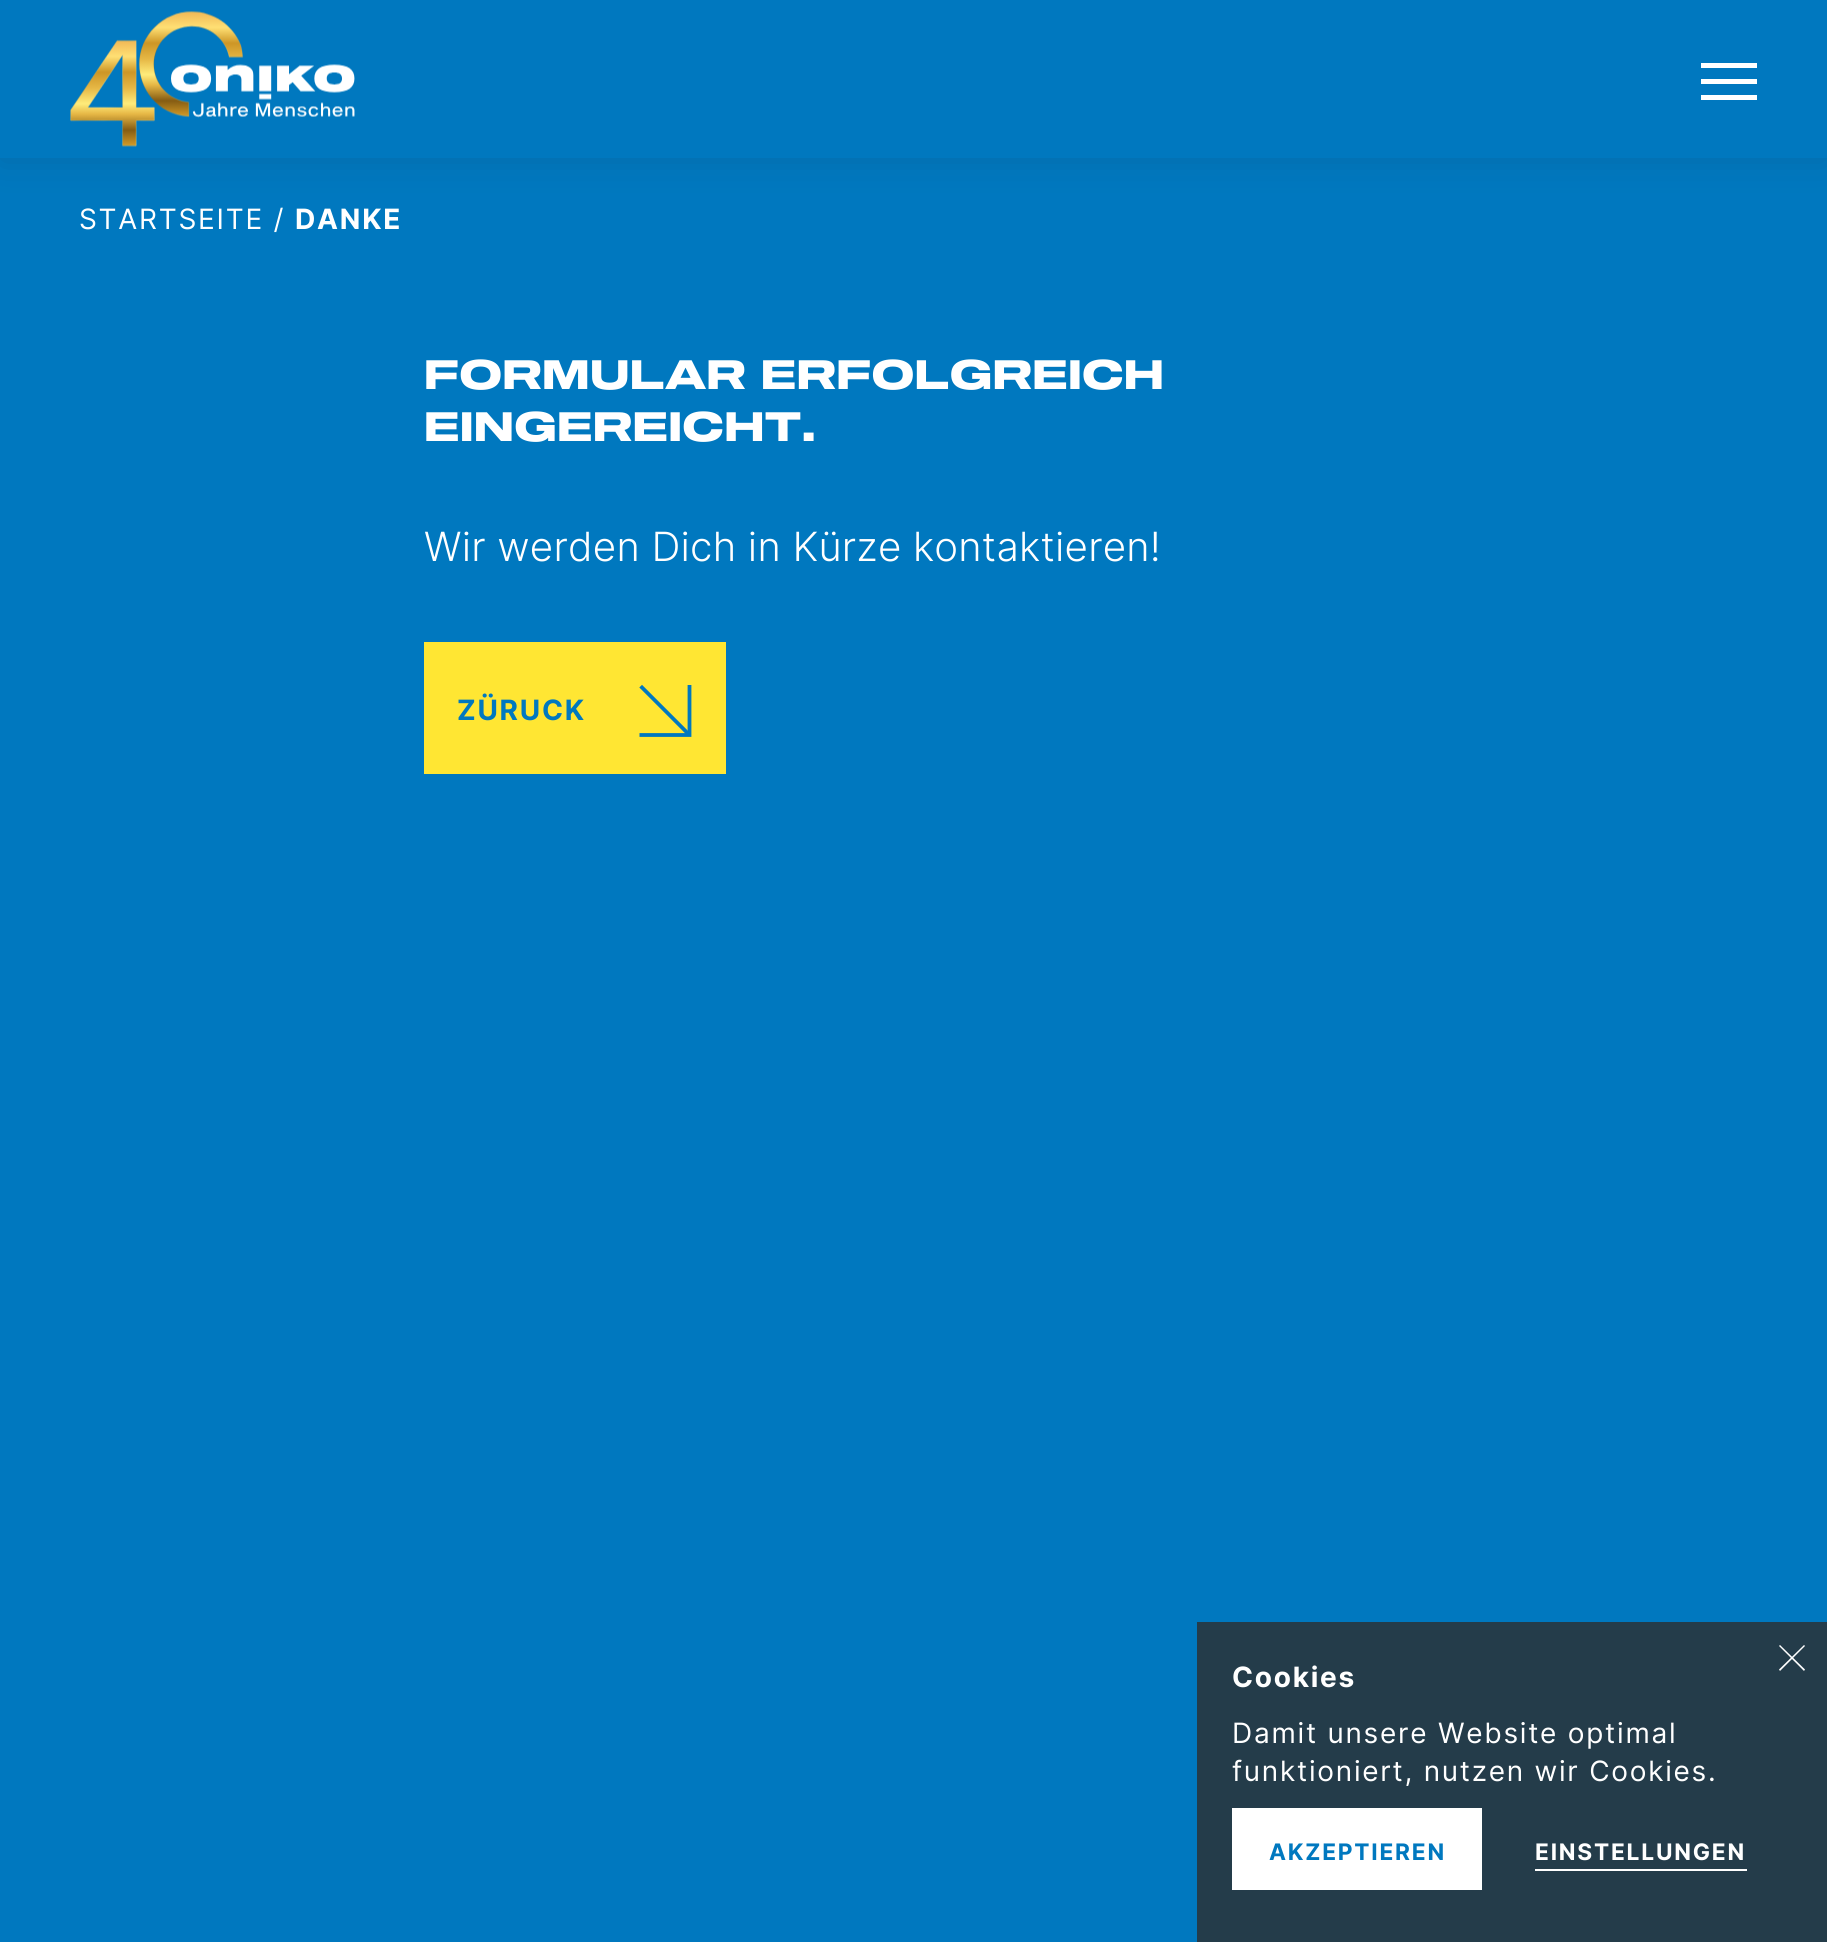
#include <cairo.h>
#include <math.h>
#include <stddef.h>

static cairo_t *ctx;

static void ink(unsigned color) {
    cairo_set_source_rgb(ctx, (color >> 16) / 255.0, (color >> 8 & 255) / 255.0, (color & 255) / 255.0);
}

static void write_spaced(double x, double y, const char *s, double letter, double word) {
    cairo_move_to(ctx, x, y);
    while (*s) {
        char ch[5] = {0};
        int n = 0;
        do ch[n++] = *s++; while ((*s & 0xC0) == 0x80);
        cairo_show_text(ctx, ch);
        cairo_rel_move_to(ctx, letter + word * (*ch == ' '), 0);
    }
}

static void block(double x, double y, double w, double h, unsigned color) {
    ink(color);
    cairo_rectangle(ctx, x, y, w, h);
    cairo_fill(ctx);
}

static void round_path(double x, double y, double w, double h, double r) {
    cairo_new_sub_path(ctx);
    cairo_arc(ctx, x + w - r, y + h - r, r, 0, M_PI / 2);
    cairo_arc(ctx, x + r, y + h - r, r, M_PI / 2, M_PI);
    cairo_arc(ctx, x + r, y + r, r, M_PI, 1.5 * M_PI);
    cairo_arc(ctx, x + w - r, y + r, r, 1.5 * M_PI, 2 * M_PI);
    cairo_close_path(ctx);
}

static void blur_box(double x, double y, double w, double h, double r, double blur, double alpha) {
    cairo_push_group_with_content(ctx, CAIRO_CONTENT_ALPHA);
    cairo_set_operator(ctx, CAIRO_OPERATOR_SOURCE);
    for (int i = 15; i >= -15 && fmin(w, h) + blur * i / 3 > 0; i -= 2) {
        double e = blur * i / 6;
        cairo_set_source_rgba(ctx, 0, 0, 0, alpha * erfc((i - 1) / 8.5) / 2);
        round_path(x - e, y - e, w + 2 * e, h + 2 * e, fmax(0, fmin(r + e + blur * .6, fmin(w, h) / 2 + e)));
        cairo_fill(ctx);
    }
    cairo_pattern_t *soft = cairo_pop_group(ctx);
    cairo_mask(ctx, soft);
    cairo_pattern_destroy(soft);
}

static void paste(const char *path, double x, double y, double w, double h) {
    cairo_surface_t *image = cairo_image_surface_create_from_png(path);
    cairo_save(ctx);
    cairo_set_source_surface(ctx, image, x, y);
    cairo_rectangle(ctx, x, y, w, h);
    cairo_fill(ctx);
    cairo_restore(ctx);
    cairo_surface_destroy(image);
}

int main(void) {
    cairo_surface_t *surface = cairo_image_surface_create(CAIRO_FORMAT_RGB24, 1827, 1942);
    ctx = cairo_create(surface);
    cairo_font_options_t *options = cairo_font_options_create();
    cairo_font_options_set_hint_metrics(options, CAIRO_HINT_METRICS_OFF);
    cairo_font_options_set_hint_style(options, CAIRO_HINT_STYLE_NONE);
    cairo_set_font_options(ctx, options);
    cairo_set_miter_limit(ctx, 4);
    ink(0x0078bf);
    cairo_paint(ctx);
    ink(0x1a1919);
    blur_box(0, 4, 1827, 157, 0, 17.5, 0.12);
    block(0, 0, 1827, 158, 0x0078bf);
    paste("pic1.png", 70, 11, 285, 136);
    block(1701, 63, 56, 5, 0xffffff);
    block(1701, 79, 56, 5, 0xffffff);
    block(1701, 95, 56, 5, 0xffffff);
    cairo_select_font_face(ctx, "Inter", CAIRO_FONT_SLANT_NORMAL, CAIRO_FONT_WEIGHT_NORMAL);
    cairo_set_font_size(ctx, 28);
    write_spaced(79, 229, "STARTSEITE /", 1.75, 0);
    cairo_select_font_face(ctx, "Inter", CAIRO_FONT_SLANT_NORMAL, CAIRO_FONT_WEIGHT_BOLD);
    write_spaced(295, 229, "DANKE", 1.75, 0);
    cairo_select_font_face(ctx, "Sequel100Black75 Black", CAIRO_FONT_SLANT_NORMAL, CAIRO_FONT_WEIGHT_NORMAL);
    cairo_set_font_size(ctx, 40.25);
    write_spaced(424, 389, "FORMULAR ERFOLGREICH", 0.2, 0);
    write_spaced(424, 441, "EINGEREICHT.", 0.2, 0);
    cairo_select_font_face(ctx, "Inter Light", CAIRO_FONT_SLANT_NORMAL, CAIRO_FONT_WEIGHT_NORMAL);
    write_spaced(424, 561, "Wir werden Dich in Kürze kontaktieren!", 0.2, 0);
    block(424, 642, 302, 132, 0xffe633);
    cairo_select_font_face(ctx, "Inter", CAIRO_FONT_SLANT_NORMAL, CAIRO_FONT_WEIGHT_BOLD);
    cairo_set_font_size(ctx, 28);
    ink(0x0078bf);
    write_spaced(457, 720, "ZÜRUCK", 1.75, 0);
    cairo_new_path(ctx);
    cairo_move_to(ctx, 642, 687.5);
    cairo_line_to(ctx, 687, 732.5);
    cairo_set_line_width(ctx, 3.8);
    cairo_set_line_cap(ctx, CAIRO_LINE_CAP_SQUARE);
    cairo_stroke(ctx);
    cairo_new_path(ctx);
    cairo_move_to(ctx, 689.5, 685);
    cairo_line_to(ctx, 689.5, 735);
    cairo_line_to(ctx, 639.5, 735);
    cairo_set_line_cap(ctx, CAIRO_LINE_CAP_BUTT);
    cairo_stroke(ctx);
    block(1197, 1622, 630, 320, 0x243c4a);
    ink(0xffffff);
    cairo_new_path(ctx);
    cairo_move_to(ctx, 1780, 1645);
    cairo_line_to(ctx, 1805, 1669.5);
    cairo_line_to(ctx, 1804, 1671);
    cairo_line_to(ctx, 1779, 1646);
    cairo_close_path(ctx);
    cairo_fill(ctx);
    cairo_new_path(ctx);
    cairo_move_to(ctx, 1779, 1669.5);
    cairo_line_to(ctx, 1804, 1645);
    cairo_line_to(ctx, 1805, 1646);
    cairo_line_to(ctx, 1780, 1671);
    cairo_close_path(ctx);
    cairo_fill(ctx);
    write_spaced(1232, 1687, "Cookies", 1.75, 0);
    cairo_select_font_face(ctx, "Inter", CAIRO_FONT_SLANT_NORMAL, CAIRO_FONT_WEIGHT_NORMAL);
    write_spaced(1232, 1743, "Damit unsere Website optimal", 1.75, 0);
    write_spaced(1232, 1781, "funktioniert, nutzen wir Cookies.", 1.75, 0);
    block(1232, 1808, 250, 82, 0xffffff);
    cairo_select_font_face(ctx, "Inter", CAIRO_FONT_SLANT_NORMAL, CAIRO_FONT_WEIGHT_BOLD);
    cairo_set_font_size(ctx, 22.75);
    ink(0x0078bf);
    write_spaced(1269, 1860, "AKZEPTIEREN", 1.75, 0);
    ink(0xffffff);
    write_spaced(1535, 1860, "EINSTELLUNGEN", 1.75, 0);
    block(1535, 1869, 212, 2, 0xffffff);
    cairo_surface_write_to_png(surface, "screenshot.png");
    cairo_font_options_destroy(options);
    cairo_destroy(ctx);
    cairo_surface_destroy(surface);
    return 0;
}
